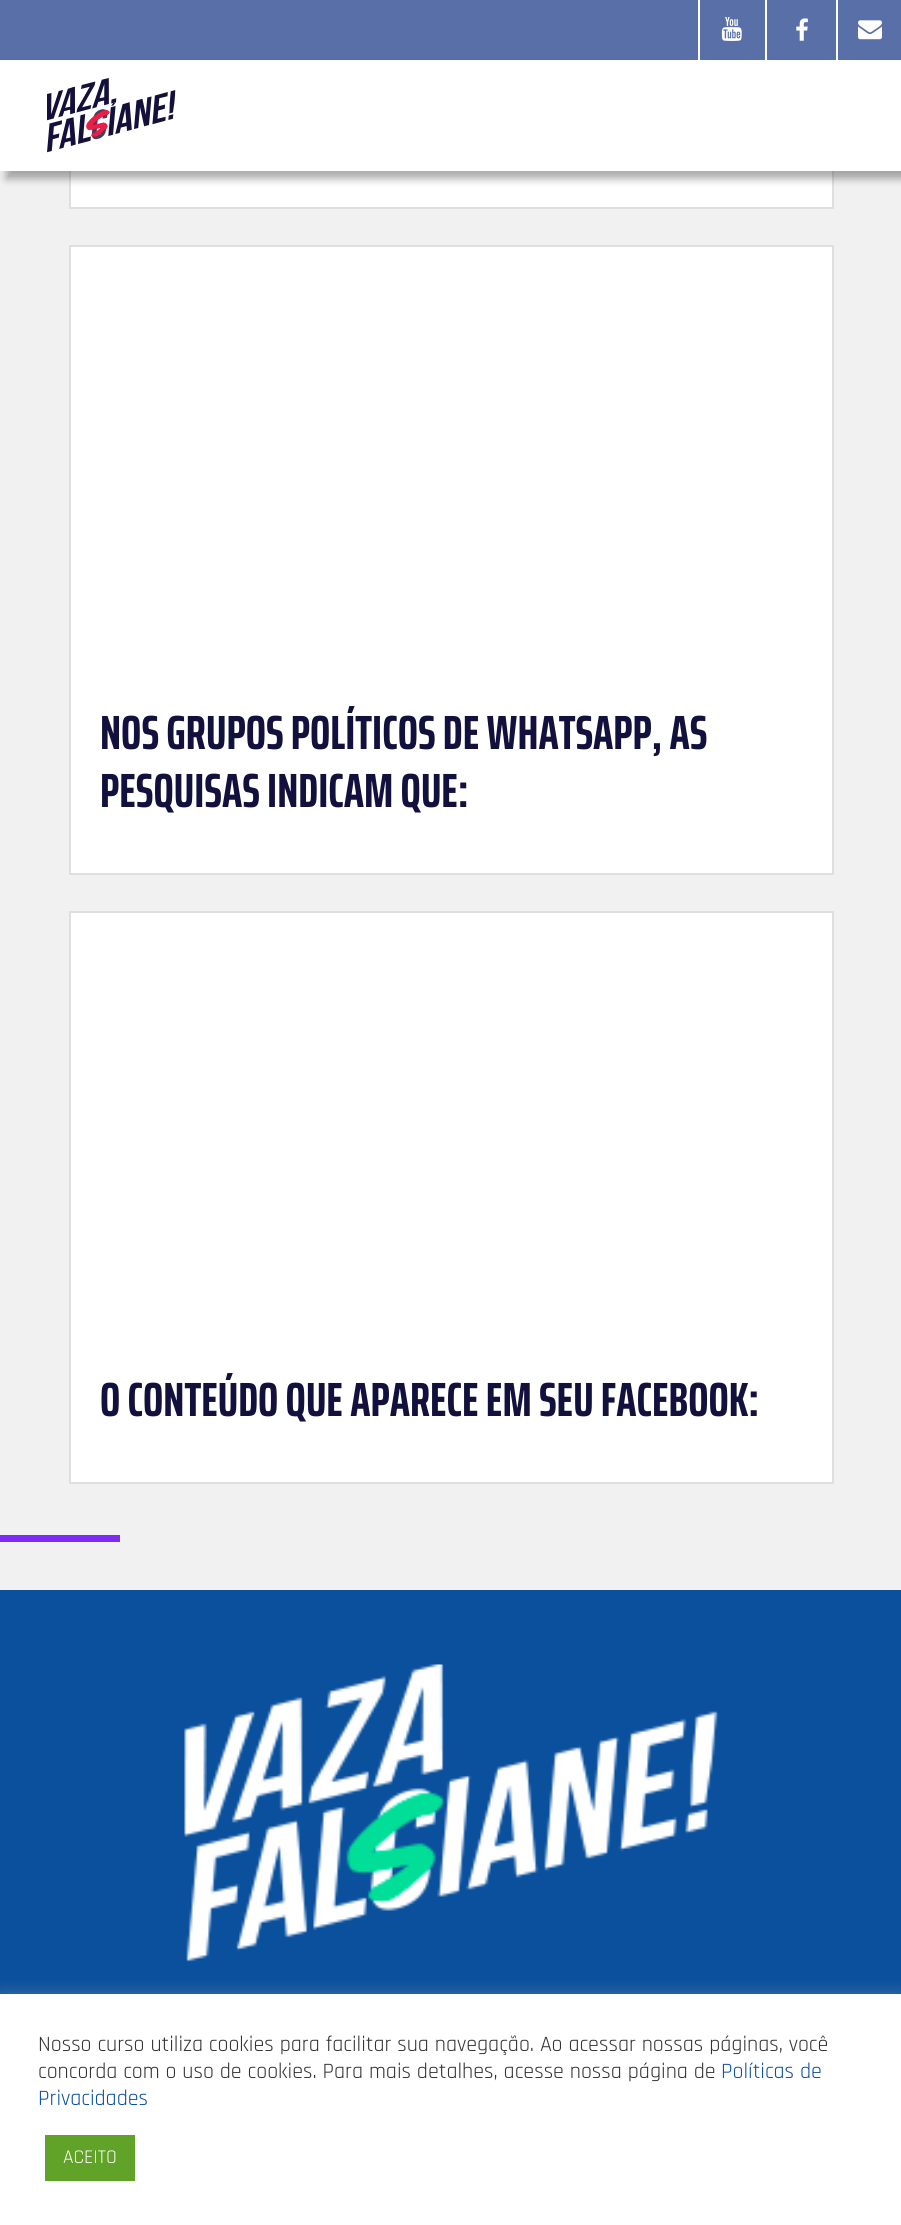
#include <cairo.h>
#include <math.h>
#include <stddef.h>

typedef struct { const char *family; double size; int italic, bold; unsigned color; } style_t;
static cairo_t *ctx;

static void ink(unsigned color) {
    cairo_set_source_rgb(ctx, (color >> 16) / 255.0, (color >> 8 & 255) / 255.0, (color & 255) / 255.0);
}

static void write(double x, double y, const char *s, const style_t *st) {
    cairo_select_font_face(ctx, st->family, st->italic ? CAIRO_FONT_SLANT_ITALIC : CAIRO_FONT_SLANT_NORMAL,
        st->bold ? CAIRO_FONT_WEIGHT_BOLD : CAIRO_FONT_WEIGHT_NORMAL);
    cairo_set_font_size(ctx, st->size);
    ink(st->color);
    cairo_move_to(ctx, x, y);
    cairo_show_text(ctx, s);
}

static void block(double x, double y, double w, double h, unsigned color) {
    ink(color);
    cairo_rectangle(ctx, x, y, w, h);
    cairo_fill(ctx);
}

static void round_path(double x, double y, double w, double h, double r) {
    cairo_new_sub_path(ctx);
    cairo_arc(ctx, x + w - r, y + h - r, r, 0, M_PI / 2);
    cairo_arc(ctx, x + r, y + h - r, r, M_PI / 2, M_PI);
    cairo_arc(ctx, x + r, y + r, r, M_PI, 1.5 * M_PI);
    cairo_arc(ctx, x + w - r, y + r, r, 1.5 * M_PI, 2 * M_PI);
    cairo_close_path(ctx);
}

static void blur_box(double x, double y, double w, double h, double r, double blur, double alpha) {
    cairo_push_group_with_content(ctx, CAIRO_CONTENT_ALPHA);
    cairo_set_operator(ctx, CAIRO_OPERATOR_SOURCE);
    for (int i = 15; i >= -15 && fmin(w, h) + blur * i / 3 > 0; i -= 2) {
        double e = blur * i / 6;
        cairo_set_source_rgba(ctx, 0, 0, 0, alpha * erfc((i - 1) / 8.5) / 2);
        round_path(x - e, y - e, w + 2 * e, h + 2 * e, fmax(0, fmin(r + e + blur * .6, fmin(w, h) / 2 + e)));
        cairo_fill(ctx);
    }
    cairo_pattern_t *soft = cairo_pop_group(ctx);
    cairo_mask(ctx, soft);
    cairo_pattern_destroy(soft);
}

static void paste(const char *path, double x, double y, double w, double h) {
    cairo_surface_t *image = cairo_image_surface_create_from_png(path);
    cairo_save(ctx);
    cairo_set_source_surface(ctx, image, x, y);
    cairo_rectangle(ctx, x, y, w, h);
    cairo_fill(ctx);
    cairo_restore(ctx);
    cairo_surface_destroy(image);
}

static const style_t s1 = {"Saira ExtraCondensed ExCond", 48, 0, 1, 0x12113d};
static const style_t s2 = {"Rajdhani", 22, 0, 0, 0x333333};
static const style_t s3 = {"Rajdhani", 22, 0, 0, 0x0a509d};
static const style_t s4 = {"Rajdhani", 19.5, 0, 0, 0xffffff};

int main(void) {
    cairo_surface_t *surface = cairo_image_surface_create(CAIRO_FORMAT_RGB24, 901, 2225);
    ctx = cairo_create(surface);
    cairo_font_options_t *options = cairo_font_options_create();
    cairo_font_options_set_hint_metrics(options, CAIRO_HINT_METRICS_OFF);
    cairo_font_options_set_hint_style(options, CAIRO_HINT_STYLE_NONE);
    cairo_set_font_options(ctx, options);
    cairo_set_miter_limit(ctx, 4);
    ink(0xf1f1f1);
    cairo_paint(ctx);
    block(71, 171, 761, 36, 0xffffff);
    cairo_rectangle(ctx, 70, -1, 763, 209);
    ink(0xdfdfdf);
    cairo_stroke(ctx);
    ink(0x000000);
    blur_box(6, 68, 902, 111, 0, 4, 0.32);
    block(0, 0, 901, 60, 0x586fa7);
    block(765, 0, 2, 60, 0xffffff);
    block(698, 0, 2, 60, 0xffffff);
    paste("pic1.png", 721, 16, 21, 25);
    block(836, 0, 2, 60, 0xffffff);
    paste("pic2.png", 796, 18, 12, 23);
    paste("pic3.png", 858, 20, 24, 20);
    block(0, 60, 901, 111, 0xffffff);
    paste("pic4.png", 47, 78, 129, 75);
    cairo_rectangle(ctx, 70, 246, 763, 628);
    cairo_fill_preserve(ctx);
    ink(0xdfdfdf);
    cairo_stroke(ctx);
    write(100, 749, "NOS GRUPOS POLÍTICOS DE WHATSAPP, AS", &s1);
    write(100, 807, "PESQUISAS INDICAM QUE:", &s1);
    ink(0xffffff);
    cairo_rectangle(ctx, 70, 912, 763, 571);
    cairo_fill_preserve(ctx);
    ink(0xdfdfdf);
    cairo_stroke(ctx);
    write(100, 1416, "O CONTEÚDO QUE APARECE EM SEU FACEBOOK:", &s1);
    block(0, 1535, 120, 7, 0x7d2bf4);
    block(0, 1590, 901, 404, 0x0a509d);
    paste("pic5.png", 184, 1664, 534, 298);
    ink(0xacabab);
    blur_box(0, 1992, 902, 233, 0, 7.5, 0.3);
    block(0, 1994, 901, 231, 0xffffff);
    write(38, 2051, "Nosso curso utiliza cookies para facilitar sua navegação. Ao acessar nossas páginas, você", &s2);
    write(38, 2078, "concorda com o uso de cookies. Para mais detalhes, acesse nossa página de", &s2);
    write(721, 2078, "Políticas de", &s3);
    write(38, 2105, "Privacidades", &s3);
    block(45, 2135, 90, 46, 0x61a229);
    write(63, 2163, "ACEITO", &s4);
    cairo_surface_write_to_png(surface, "screenshot.png");
    cairo_font_options_destroy(options);
    cairo_destroy(ctx);
    cairo_surface_destroy(surface);
    return 0;
}
